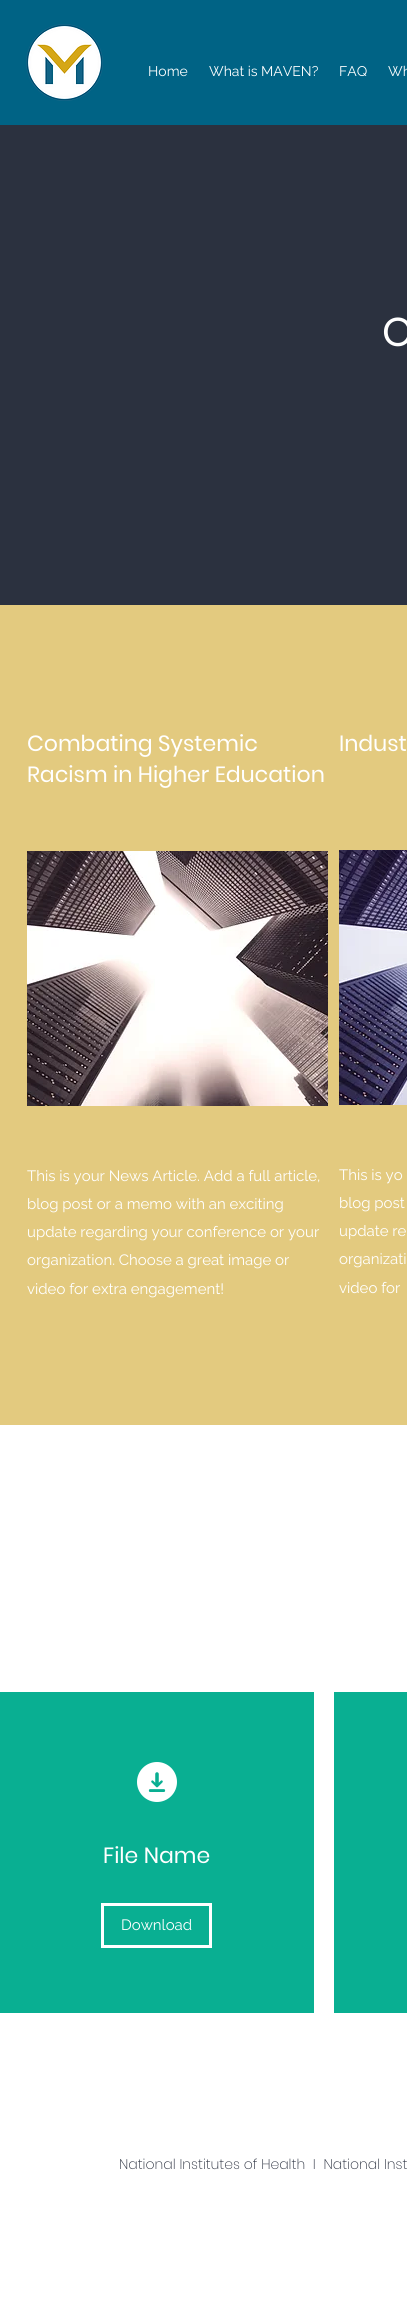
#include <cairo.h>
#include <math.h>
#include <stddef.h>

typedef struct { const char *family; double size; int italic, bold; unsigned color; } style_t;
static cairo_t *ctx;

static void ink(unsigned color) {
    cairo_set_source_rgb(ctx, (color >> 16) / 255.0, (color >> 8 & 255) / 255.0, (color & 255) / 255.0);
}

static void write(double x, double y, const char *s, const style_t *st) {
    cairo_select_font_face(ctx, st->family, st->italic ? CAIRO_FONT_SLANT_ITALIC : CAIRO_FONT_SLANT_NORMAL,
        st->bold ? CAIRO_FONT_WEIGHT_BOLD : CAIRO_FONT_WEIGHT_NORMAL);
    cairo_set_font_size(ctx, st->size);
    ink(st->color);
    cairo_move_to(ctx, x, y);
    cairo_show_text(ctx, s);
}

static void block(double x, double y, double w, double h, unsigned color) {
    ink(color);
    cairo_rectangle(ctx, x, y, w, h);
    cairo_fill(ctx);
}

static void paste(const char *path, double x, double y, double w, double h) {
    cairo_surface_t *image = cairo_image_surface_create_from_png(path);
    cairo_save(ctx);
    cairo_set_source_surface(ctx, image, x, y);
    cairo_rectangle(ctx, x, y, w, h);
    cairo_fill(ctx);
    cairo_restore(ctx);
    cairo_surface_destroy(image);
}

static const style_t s1 = {"Raleway", 14, 0, 0, 0xffffff};
static const style_t s2 = {"Poppins", 40, 0, 0, 0xffffff};
static const style_t s3 = {"Poppins", 22, 0, 0, 0xffffff};
static const style_t s4 = {"Raleway", 15, 0, 0, 0xffffff};
static const style_t s5 = {"Poppins ExtraLight", 14, 0, 0, 0x2b313f};

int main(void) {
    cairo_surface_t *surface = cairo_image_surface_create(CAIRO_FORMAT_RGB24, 407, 2314);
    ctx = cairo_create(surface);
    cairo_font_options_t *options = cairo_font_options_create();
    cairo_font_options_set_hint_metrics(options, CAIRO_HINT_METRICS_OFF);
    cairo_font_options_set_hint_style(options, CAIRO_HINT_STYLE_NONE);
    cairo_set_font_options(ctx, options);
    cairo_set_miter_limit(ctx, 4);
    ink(0xffffff);
    cairo_paint(ctx);
    block(0, 0, 407, 125, 0x006385);
    paste("pic1.png", 26, 24, 77, 77);
    write(148, 76, "Home", &s1);
    write(209, 76, "What is MAVEN?", &s1);
    write(339, 76, "FAQ", &s1);
    write(388, 76, "Wh", &s1);
    block(0, 125, 407, 480, 0x2b313f);
    write(382, 346, "O", &s2);
    block(0, 605, 407, 820, 0xe3ca7f);
    write(27, 751, "Combating Systemic", &s3);
    write(27, 782, "Racism in Higher Education", &s3);
    paste("pic2.png", 27, 851, 301, 255);
    write(27, 1181, "This is your News Article. Add a full article,", &s4);
    write(27, 1209, "blog post or a memo with an exciting", &s4);
    write(27, 1237, "update regarding your conference or your", &s4);
    write(27, 1265, "organization. Choose a great image or", &s4);
    write(27, 1294, "video for extra engagement!", &s4);
    write(339, 751, "Indust", &s3);
    paste("pic3.png", 339, 850, 68, 255);
    write(339, 1180, "This is yo", &s4);
    write(339, 1208, "blog post", &s4);
    write(339, 1236, "update re", &s4);
    write(339, 1264, "organizati", &s4);
    write(339, 1293, "video for", &s4);
    block(0, 1692, 314, 321, 0x09af92);
    paste("pic4.png", 137, 1762, 40, 40);
    block(334, 1692, 73, 321, 0x09af92);
    write(103, 1863, "File Name", &s3);
    cairo_rectangle(ctx, 102.5, 1904.5, 108, 42);
    cairo_set_line_width(ctx, 3);
    cairo_stroke(ctx);
    write(121, 1930, "Download", &s4);
    write(119, 2169, "National Institutes of Health  I  National Inst", &s5);
    cairo_surface_write_to_png(surface, "screenshot.png");
    cairo_font_options_destroy(options);
    cairo_destroy(ctx);
    cairo_surface_destroy(surface);
    return 0;
}
